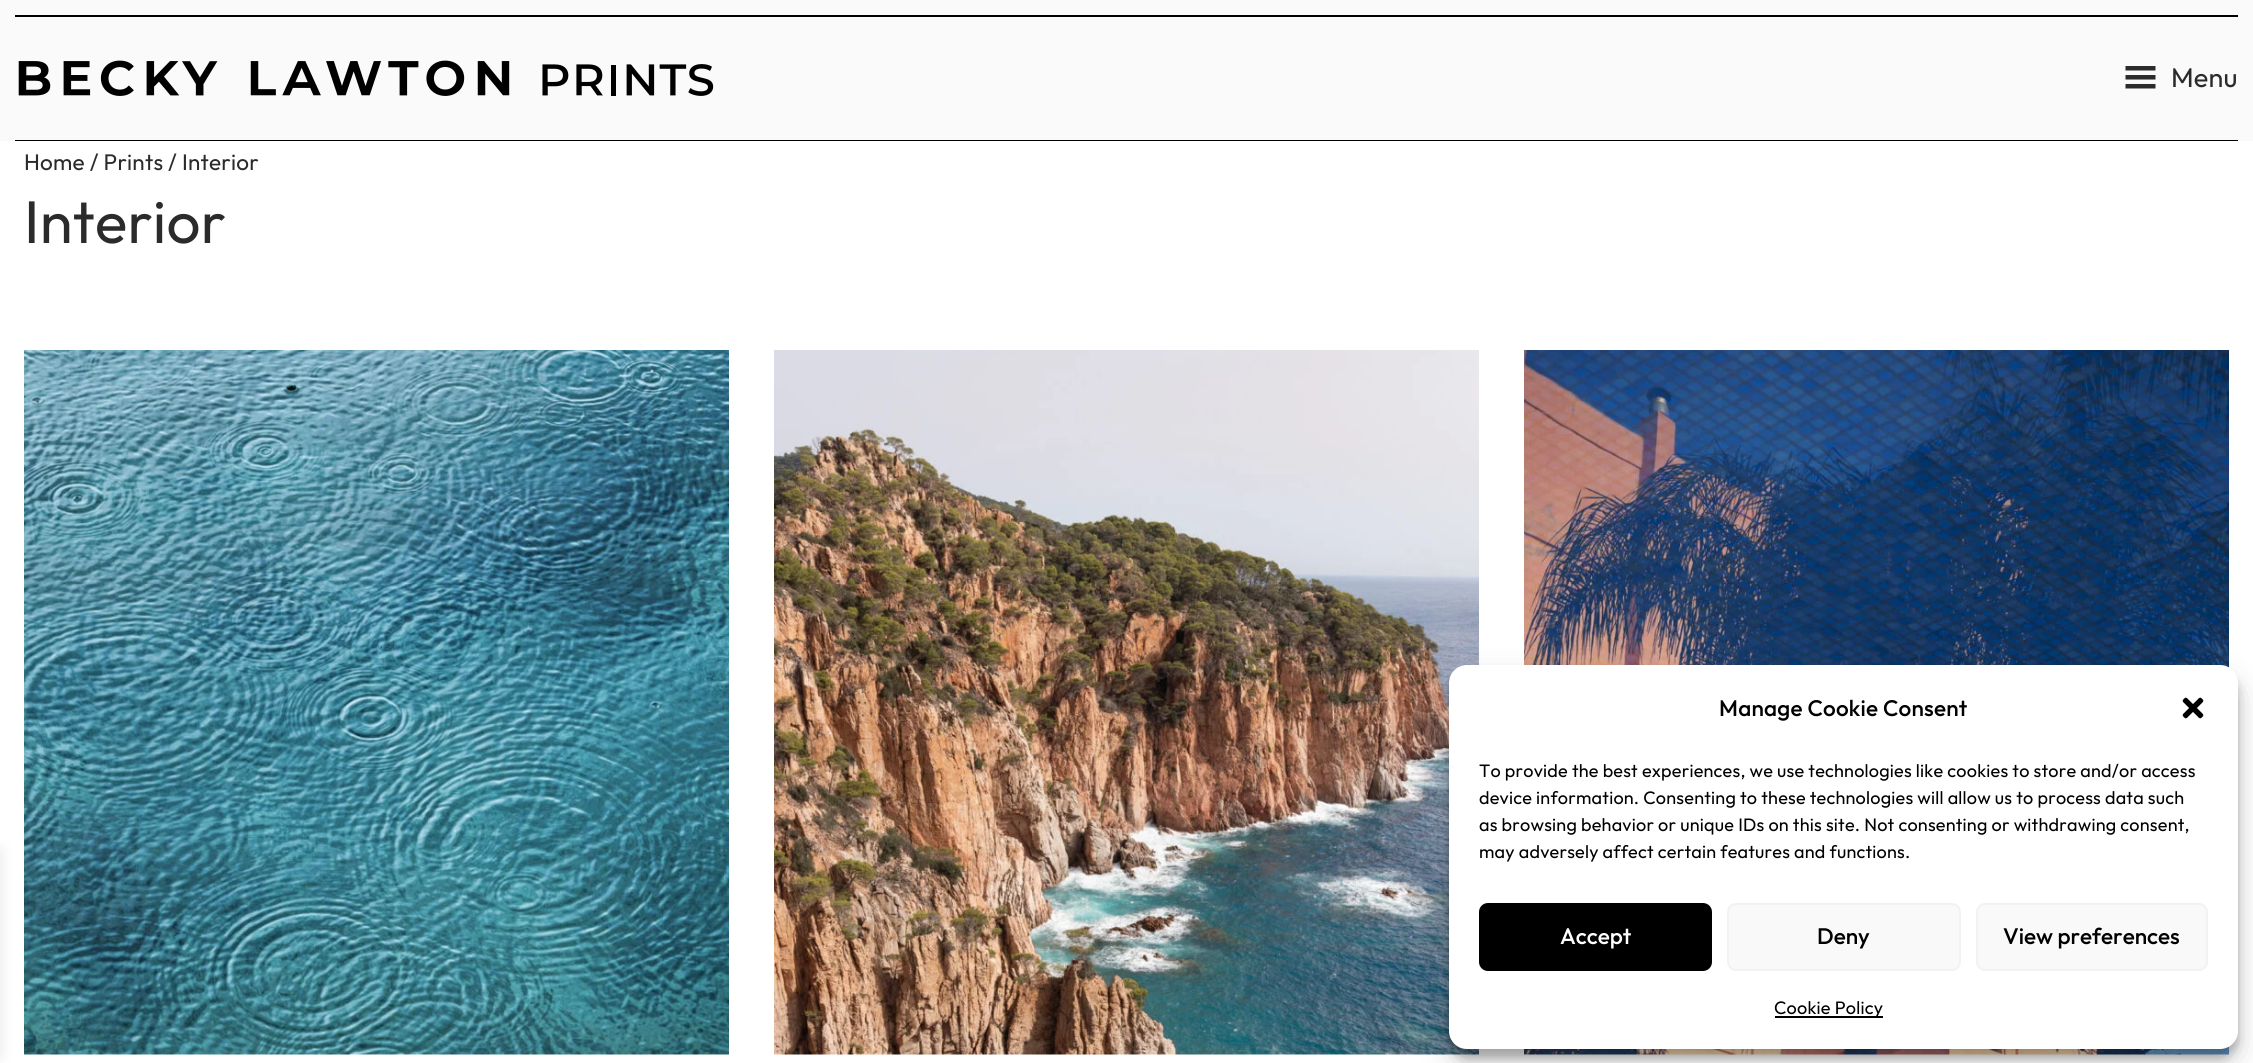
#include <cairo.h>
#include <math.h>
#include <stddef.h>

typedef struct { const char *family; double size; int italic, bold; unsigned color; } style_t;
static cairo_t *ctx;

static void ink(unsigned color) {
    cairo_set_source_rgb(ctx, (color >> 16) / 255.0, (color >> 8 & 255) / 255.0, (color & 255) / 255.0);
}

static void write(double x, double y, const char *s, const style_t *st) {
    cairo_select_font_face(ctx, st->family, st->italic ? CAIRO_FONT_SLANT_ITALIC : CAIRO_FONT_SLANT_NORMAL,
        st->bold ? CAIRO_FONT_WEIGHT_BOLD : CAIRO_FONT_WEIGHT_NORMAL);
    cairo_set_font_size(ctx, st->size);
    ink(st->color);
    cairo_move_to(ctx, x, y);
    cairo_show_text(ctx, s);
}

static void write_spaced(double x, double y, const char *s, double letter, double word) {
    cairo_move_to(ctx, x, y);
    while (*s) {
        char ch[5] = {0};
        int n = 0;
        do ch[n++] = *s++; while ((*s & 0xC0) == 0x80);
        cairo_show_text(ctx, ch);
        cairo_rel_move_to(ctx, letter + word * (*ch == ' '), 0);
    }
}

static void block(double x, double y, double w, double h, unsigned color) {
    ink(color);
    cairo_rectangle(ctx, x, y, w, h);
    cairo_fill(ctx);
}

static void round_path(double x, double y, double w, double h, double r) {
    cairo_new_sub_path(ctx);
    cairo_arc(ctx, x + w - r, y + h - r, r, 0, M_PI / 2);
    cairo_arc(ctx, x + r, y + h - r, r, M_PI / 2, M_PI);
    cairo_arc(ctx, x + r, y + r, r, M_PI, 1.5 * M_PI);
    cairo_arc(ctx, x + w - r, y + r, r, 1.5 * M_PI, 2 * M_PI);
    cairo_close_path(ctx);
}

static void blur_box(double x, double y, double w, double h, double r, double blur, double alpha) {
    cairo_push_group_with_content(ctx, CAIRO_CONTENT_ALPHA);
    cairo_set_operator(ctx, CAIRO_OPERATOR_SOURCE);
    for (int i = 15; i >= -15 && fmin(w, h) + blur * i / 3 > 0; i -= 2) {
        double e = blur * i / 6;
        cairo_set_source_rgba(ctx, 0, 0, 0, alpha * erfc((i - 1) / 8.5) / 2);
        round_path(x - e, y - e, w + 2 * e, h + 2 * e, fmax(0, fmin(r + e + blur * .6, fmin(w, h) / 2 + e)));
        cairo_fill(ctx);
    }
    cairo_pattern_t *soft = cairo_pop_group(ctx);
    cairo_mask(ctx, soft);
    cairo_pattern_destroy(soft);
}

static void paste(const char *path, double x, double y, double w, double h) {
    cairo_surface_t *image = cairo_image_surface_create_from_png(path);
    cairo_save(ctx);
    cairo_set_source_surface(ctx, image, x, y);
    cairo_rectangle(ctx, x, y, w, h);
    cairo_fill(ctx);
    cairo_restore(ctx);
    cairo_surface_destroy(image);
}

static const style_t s1 = {"Outfit Medium", 22.5, 0, 0, 0xffffff};
static const style_t s2 = {"Outfit Medium", 22.5, 0, 0, 0x000000};

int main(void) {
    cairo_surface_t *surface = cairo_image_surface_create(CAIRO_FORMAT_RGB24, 2253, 1063);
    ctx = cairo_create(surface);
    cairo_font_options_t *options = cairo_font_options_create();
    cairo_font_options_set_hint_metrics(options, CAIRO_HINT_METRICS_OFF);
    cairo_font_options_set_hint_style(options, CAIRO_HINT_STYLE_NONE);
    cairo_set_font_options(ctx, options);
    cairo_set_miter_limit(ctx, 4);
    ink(0xfafafa);
    cairo_paint(ctx);
    block(15, 15, 2223, 2, 0x000000);
    block(15, 140, 2223, 1, 0x000000);
    paste("pic1.png", 18, 60, 696, 36);
    paste("pic2.png", 2125, 66, 31, 23);
    cairo_select_font_face(ctx, "Outfit", CAIRO_FONT_SLANT_NORMAL, CAIRO_FONT_WEIGHT_NORMAL);
    cairo_set_font_size(ctx, 27);
    ink(0x2b2b2b);
    write_spaced(2171, 87, "Menu", 0.22, 0);
    block(0, 141, 2253, 922, 0xffffff);
    cairo_set_font_size(ctx, 22.5);
    ink(0x2b2b2b);
    write_spaced(24, 170, "Home / Prints / Interior", 0.22, 0);
    cairo_set_font_size(ctx, 60);
    write_spaced(24, 243, "Interior", 0.22, 0);
    paste("pic3.png", 24, 350, 705, 705);
    paste("pic4.png", 774, 350, 705, 705);
    paste("pic5.png", 1524, 350, 705, 705);
    ink(0x000000);
    blur_box(-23, 851, 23, 205, 0, 7.5, 0.1);
    blur_box(1449, 674, 789, 384, 18, 4.5, 0.23);
    blur_box(1449, 680, 789, 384, 18, 15, 0.19);
    ink(0xffffff);
    round_path(1449, 665, 789, 384, 18);
    cairo_fill(ctx);
    cairo_select_font_face(ctx, "Outfit Medium", CAIRO_FONT_SLANT_NORMAL, CAIRO_FONT_WEIGHT_NORMAL);
    cairo_set_font_size(ctx, 22.5);
    ink(0x000000);
    write_spaced(1719, 716, "Manage Cookie Consent", 0.22, 0);
    paste("pic6.png", 2182, 697, 22, 22);
    cairo_select_font_face(ctx, "Outfit", CAIRO_FONT_SLANT_NORMAL, CAIRO_FONT_WEIGHT_NORMAL);
    cairo_set_font_size(ctx, 18);
    write_spaced(1479, 777, "To provide the best experiences, we use technologies like cookies to store and/or access", 0.22, 0);
    write_spaced(1479, 804, "device information. Consenting to these technologies will allow us to process data such", 0.22, 0);
    write_spaced(1479, 831, "as browsing behavior or unique IDs on this site. Not consenting or withdrawing consent,", 0.22, 0);
    write_spaced(1479, 858, "may adversely affect certain features and functions.", 0.22, 0);
    round_path(1480, 904, 231, 66, 8);
    cairo_fill_preserve(ctx);
    cairo_stroke(ctx);
    write(1560, 944, "Accept", &s1);
    ink(0xf9f9f9);
    round_path(1728, 904, 232, 66, 8);
    cairo_fill_preserve(ctx);
    ink(0xf2f2f2);
    cairo_stroke(ctx);
    write(1817, 944, "Deny", &s2);
    ink(0xf9f9f9);
    round_path(1977, 904, 230, 66, 8);
    cairo_fill_preserve(ctx);
    ink(0xf2f2f2);
    cairo_stroke(ctx);
    write(2003, 944, "View preferences", &s2);
    block(1775, 1016, 108, 2, 0x000000);
    cairo_select_font_face(ctx, "Outfit", CAIRO_FONT_SLANT_NORMAL, CAIRO_FONT_WEIGHT_NORMAL);
    cairo_set_font_size(ctx, 18);
    write_spaced(1774, 1014, "Cookie Policy", 0.22, 0);
    cairo_surface_write_to_png(surface, "screenshot.png");
    cairo_font_options_destroy(options);
    cairo_destroy(ctx);
    cairo_surface_destroy(surface);
    return 0;
}
